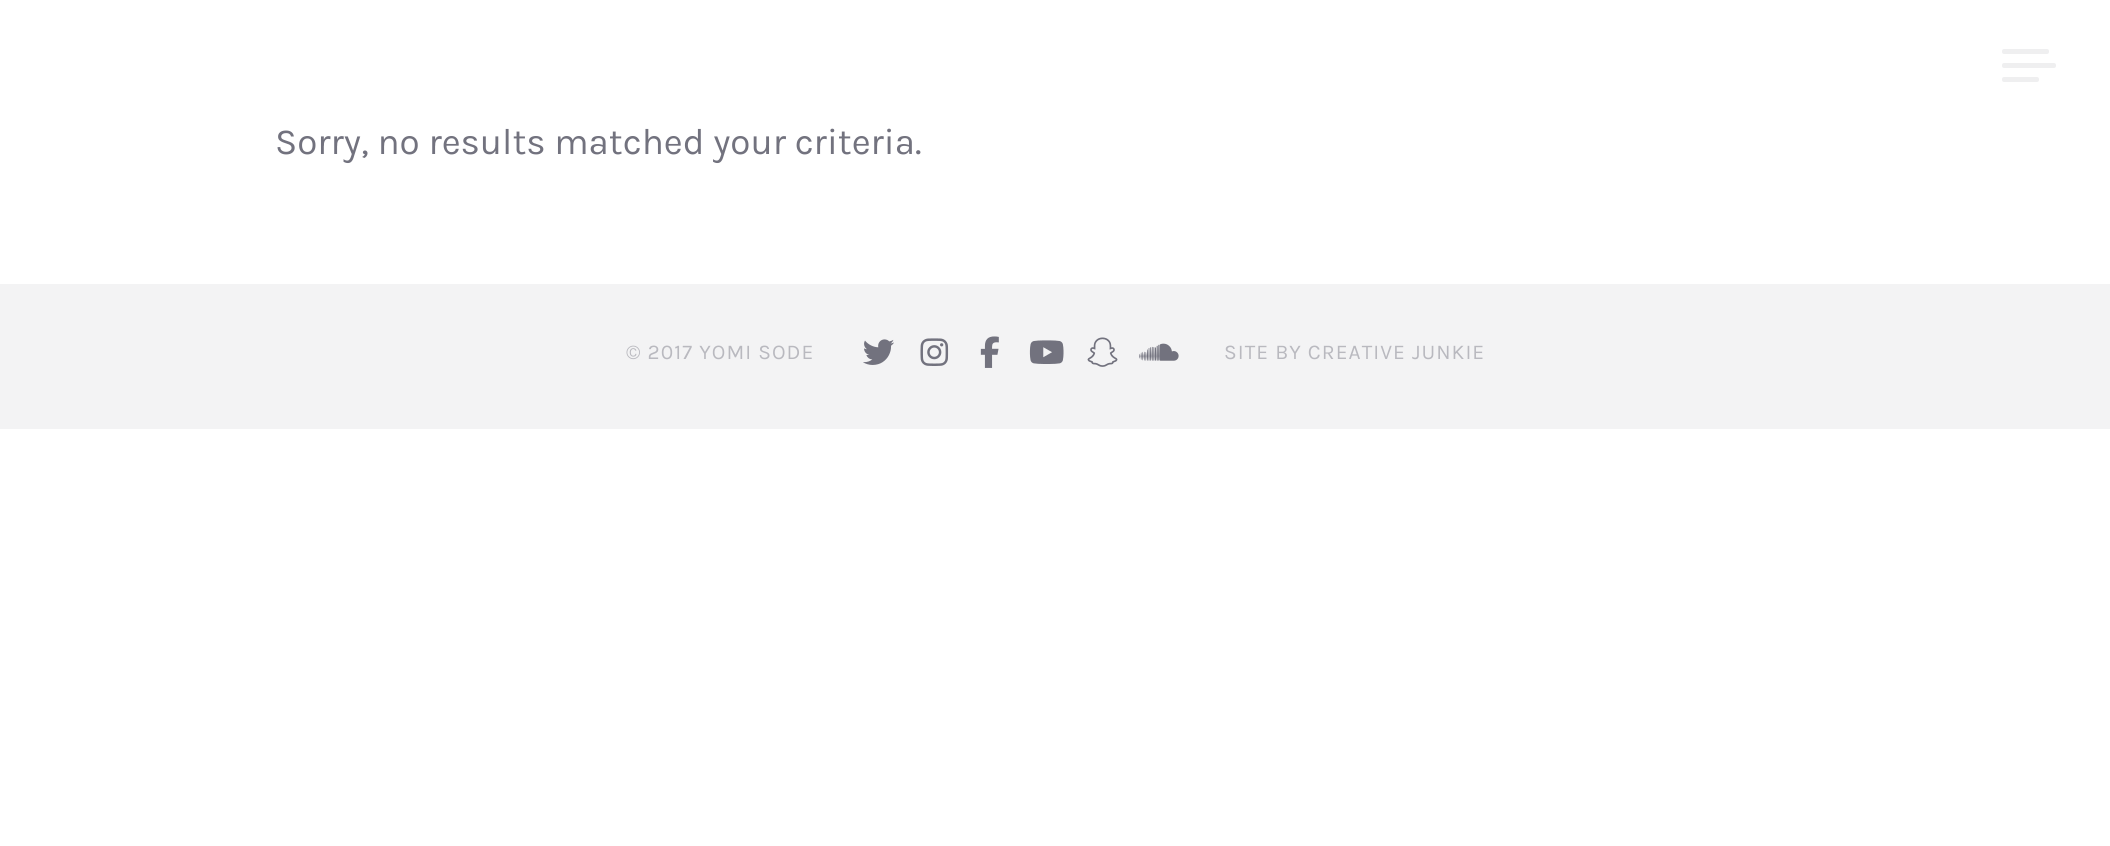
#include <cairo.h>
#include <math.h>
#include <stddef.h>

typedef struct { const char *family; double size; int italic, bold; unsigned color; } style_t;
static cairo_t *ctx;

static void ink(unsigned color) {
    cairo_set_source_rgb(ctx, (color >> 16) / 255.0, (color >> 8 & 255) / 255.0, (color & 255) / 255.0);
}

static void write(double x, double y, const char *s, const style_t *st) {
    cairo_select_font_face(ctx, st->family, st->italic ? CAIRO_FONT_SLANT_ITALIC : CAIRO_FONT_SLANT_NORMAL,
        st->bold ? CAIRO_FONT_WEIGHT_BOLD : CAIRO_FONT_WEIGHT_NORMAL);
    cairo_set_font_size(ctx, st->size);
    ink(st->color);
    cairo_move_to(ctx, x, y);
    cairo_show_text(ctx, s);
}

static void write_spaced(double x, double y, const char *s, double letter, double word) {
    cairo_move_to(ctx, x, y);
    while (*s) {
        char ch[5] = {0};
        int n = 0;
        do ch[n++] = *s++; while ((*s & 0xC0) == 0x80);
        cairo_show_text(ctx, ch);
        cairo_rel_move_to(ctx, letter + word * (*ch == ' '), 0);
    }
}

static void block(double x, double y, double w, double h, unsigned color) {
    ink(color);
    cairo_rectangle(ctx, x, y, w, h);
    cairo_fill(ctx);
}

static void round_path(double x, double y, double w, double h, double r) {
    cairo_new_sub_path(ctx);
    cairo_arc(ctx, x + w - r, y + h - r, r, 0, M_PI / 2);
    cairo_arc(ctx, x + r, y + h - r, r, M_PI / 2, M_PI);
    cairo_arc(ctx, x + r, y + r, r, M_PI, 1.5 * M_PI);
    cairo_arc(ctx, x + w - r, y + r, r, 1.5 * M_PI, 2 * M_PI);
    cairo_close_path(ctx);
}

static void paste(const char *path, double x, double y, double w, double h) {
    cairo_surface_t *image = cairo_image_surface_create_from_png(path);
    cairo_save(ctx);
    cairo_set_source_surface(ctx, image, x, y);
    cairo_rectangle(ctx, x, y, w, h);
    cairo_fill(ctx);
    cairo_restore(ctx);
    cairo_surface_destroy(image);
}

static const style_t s1 = {"Karla", 36.75, 0, 0, 0x72727e};

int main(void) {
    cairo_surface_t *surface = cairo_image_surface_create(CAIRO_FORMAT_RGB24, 2110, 846);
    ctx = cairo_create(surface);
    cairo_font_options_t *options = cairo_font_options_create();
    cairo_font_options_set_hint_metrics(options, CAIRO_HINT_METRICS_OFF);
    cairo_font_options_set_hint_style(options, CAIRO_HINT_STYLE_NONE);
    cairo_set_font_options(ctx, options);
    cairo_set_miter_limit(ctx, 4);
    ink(0xffffff);
    cairo_paint(ctx);
    ink(0xefeff0);
    round_path(2002, 63, 54, 5, 2);
    cairo_fill(ctx);
    round_path(2002, 49, 47, 5, 2);
    cairo_fill(ctx);
    round_path(2002, 77, 37, 5, 2);
    cairo_fill(ctx);
    write(275, 154, "Sorry, no results matched your criteria.", &s1);
    block(0, 284, 2110, 145, 0xf3f3f4);
    cairo_set_font_size(ctx, 21);
    ink(0xb9b9bf);
    write_spaced(626, 359, "© 2017 YOMI SODE", 1.05, 0);
    paste("pic1.png", 863, 339, 31, 26);
    paste("pic2.png", 920, 338, 29, 28);
    paste("pic3.png", 980, 336, 19, 32);
    paste("pic4.png", 1029, 340, 35, 24);
    paste("pic5.png", 1087, 337, 31, 30);
    paste("pic6.png", 1139, 343, 40, 18);
    write_spaced(1224, 359, "SITE BY CREATIVE JUNKIE", 1.05, 0);
    cairo_surface_write_to_png(surface, "screenshot.png");
    cairo_font_options_destroy(options);
    cairo_destroy(ctx);
    cairo_surface_destroy(surface);
    return 0;
}
